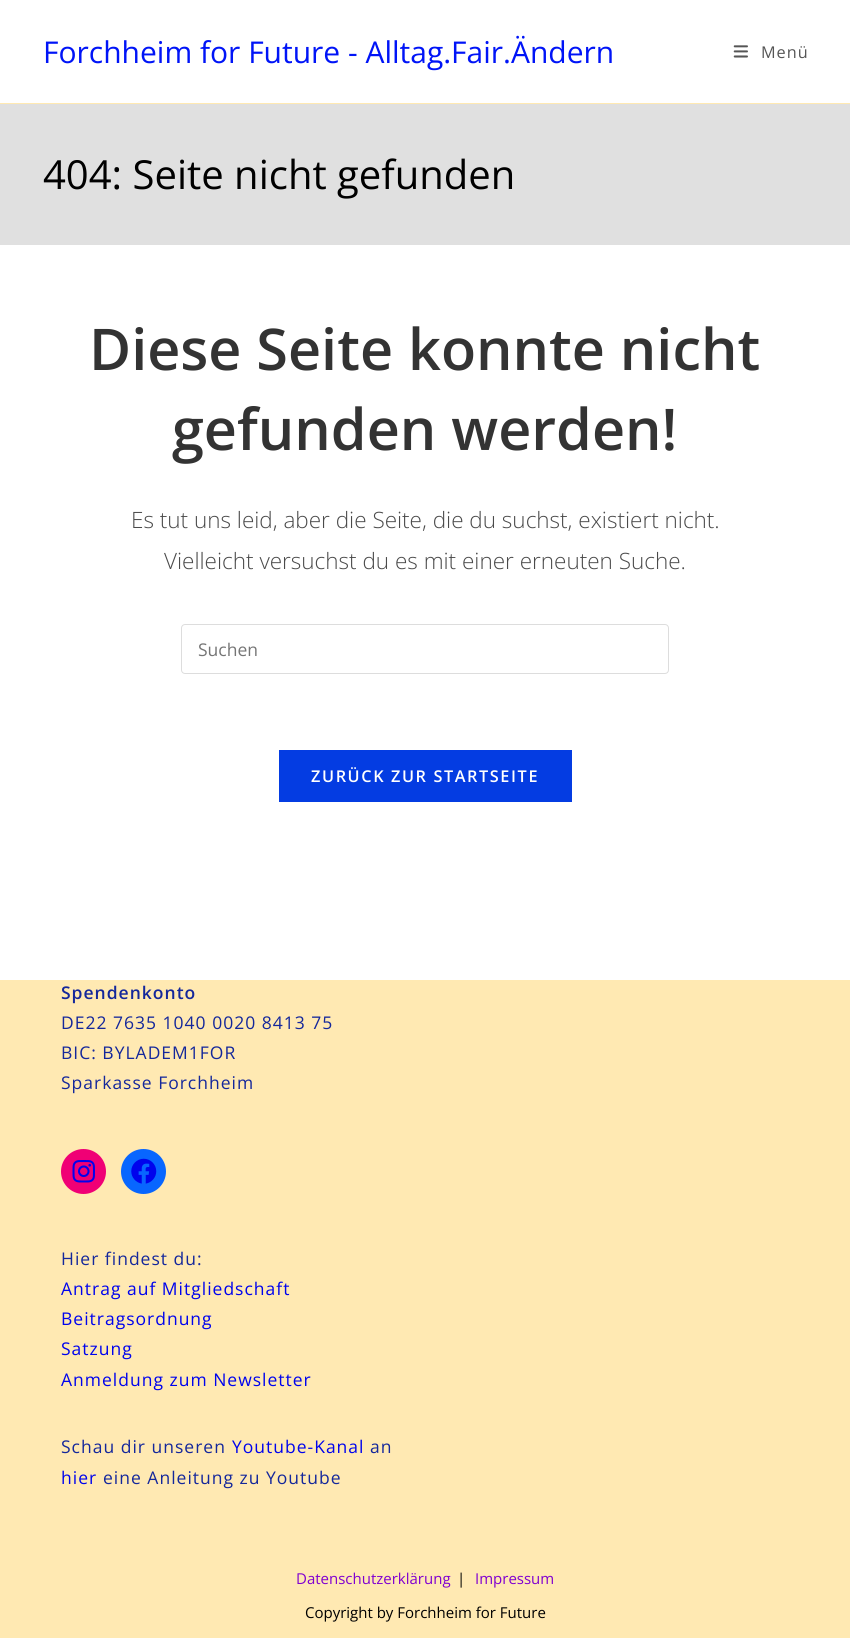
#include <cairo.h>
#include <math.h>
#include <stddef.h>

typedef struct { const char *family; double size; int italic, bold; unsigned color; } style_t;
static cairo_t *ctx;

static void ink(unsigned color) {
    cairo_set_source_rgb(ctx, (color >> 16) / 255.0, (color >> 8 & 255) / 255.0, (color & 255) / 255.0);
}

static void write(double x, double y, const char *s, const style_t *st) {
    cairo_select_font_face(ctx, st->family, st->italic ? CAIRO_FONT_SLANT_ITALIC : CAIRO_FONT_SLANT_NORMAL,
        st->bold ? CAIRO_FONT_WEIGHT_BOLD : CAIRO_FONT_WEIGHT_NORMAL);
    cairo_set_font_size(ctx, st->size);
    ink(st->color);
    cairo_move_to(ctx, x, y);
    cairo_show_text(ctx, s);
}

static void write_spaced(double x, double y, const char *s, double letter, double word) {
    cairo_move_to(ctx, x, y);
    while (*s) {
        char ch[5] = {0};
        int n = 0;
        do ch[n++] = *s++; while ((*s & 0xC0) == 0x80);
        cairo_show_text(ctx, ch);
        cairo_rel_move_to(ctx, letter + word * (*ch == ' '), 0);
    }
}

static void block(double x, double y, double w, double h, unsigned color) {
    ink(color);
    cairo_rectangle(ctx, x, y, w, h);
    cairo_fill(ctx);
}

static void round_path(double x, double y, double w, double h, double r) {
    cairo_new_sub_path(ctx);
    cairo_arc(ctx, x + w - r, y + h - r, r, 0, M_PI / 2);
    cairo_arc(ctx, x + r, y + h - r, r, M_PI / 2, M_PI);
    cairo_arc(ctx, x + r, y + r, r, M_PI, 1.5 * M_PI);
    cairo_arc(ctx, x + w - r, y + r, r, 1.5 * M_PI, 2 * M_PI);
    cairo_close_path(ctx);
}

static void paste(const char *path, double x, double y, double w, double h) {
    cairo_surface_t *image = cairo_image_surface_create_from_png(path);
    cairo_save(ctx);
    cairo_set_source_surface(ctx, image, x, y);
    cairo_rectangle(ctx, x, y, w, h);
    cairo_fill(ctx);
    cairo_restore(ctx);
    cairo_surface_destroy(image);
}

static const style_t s1 = {"Open Sans", 30, 0, 0, 0x0014f7};
static const style_t s2 = {"Open Sans", 40, 0, 0, 0x000000};
static const style_t s3 = {"Open Sans SemiBold", 57.5, 0, 0, 0x333333};
static const style_t s4 = {"Open Sans Light", 22.5, 0, 0, 0x4a4a4a};
static const style_t s5 = {"Open Sans", 17.5, 0, 0, 0x757575};
static const style_t s6 = {"Open Sans", 15, 0, 0, 0x8000d1};
static const style_t s7 = {"Open Sans", 15, 0, 0, 0x000000};

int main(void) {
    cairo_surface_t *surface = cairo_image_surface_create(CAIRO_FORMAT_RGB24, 850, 1638);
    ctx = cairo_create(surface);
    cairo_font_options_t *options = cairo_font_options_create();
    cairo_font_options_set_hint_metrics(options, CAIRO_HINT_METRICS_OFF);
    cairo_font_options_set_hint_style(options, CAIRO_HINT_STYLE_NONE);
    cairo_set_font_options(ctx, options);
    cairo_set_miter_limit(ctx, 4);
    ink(0xffffff);
    cairo_paint(ctx);
    block(0, 103, 850, 1, 0xffe9b2);
    write(43, 63, "Forchheim for Future - Alltag.Fair.Ändern", &s1);
    paste("pic1.png", 733, 45, 15, 13);
    cairo_set_font_size(ctx, 16.25);
    ink(0x555555);
    write_spaced(761, 58, "Menü", 1, 0);
    block(0, 104, 850, 141, 0xe0e0e0);
    write(43, 189, "404: Seite nicht gefunden", &s2);
    write(89, 370, "Diese Seite konnte nicht", &s3);
    write(172, 450, "gefunden werden!", &s3);
    write(131, 528, "Es tut uns leid, aber die Seite, die du suchst, existiert nicht.", &s4);
    write(164, 569, "Vielleicht versuchst du es mit einer erneuten Suche.", &s4);
    round_path(181.5, 624.5, 487, 49, 3.5);
    ink(0xdddddd);
    cairo_set_line_width(ctx, 1);
    cairo_stroke(ctx);
    write(198, 656, "Suchen", &s5);
    block(279, 750, 293, 52, 0x043ce2);
    cairo_select_font_face(ctx, "Open Sans SemiBold", CAIRO_FONT_SLANT_NORMAL, CAIRO_FONT_WEIGHT_NORMAL);
    cairo_set_font_size(ctx, 16.25);
    ink(0xffffff);
    write_spaced(311, 782, "ZURÜCK ZUR STARTSEITE", 1.6, 0);
    block(0, 980, 850, 658, 0xffe9b2);
    cairo_set_font_size(ctx, 17.5);
    ink(0x14279b);
    write_spaced(61, 999, "Spendenkonto", 1, 0);
    cairo_select_font_face(ctx, "Open Sans", CAIRO_FONT_SLANT_NORMAL, CAIRO_FONT_WEIGHT_NORMAL);
    write_spaced(61, 1029, "DE22 7635 1040 0020 8413 75", 1, 0);
    write_spaced(61, 1059, "BIC: BYLADEM1FOR", 1, 0);
    write_spaced(61, 1089, "Sparkasse Forchheim", 1, 0);
    ink(0xf00075);
    cairo_new_path(ctx);
    cairo_arc(ctx, 83.5, 1171.5, 22.5, 0, 2 * M_PI);
    cairo_fill(ctx);
    paste("pic2.png", 72, 1160, 23, 23);
    ink(0x0866ff);
    cairo_arc(ctx, 143.5, 1171.5, 22.5, 0, 2 * M_PI);
    cairo_fill(ctx);
    paste("pic3.png", 131, 1158, 26, 26);
    ink(0x14279b);
    write_spaced(61, 1265, "Hier findest du:", 1, 0);
    ink(0x0003ed);
    write_spaced(61, 1295, "Antrag auf Mitgliedschaft", 1, 0);
    write_spaced(61, 1325, "Beitragsordnung", 1, 0);
    write_spaced(61, 1355, "Satzung", 1, 0);
    write_spaced(61, 1386, "Anmeldung zum Newsletter", 1, 0);
    ink(0x14279b);
    write_spaced(61, 1453, "Schau dir unseren", 1, 0);
    ink(0x0003ed);
    write_spaced(232, 1453, "Youtube-Kanal", 1, 0);
    ink(0x14279b);
    write_spaced(370, 1453, "an", 1, 0);
    ink(0x0003ed);
    write_spaced(61, 1484, "hier", 1, 0);
    ink(0x14279b);
    write_spaced(103, 1484, "eine Anleitung zu Youtube", 1, 0);
    write(296, 1584, "Datenschutzerklärung", &s6);
    write(457, 1584, "|", &s7);
    write(475, 1584, "Impressum", &s6);
    write(305, 1618, "Copyright by Forchheim for Future", &s7);
    cairo_surface_write_to_png(surface, "screenshot.png");
    cairo_font_options_destroy(options);
    cairo_destroy(ctx);
    cairo_surface_destroy(surface);
    return 0;
}
